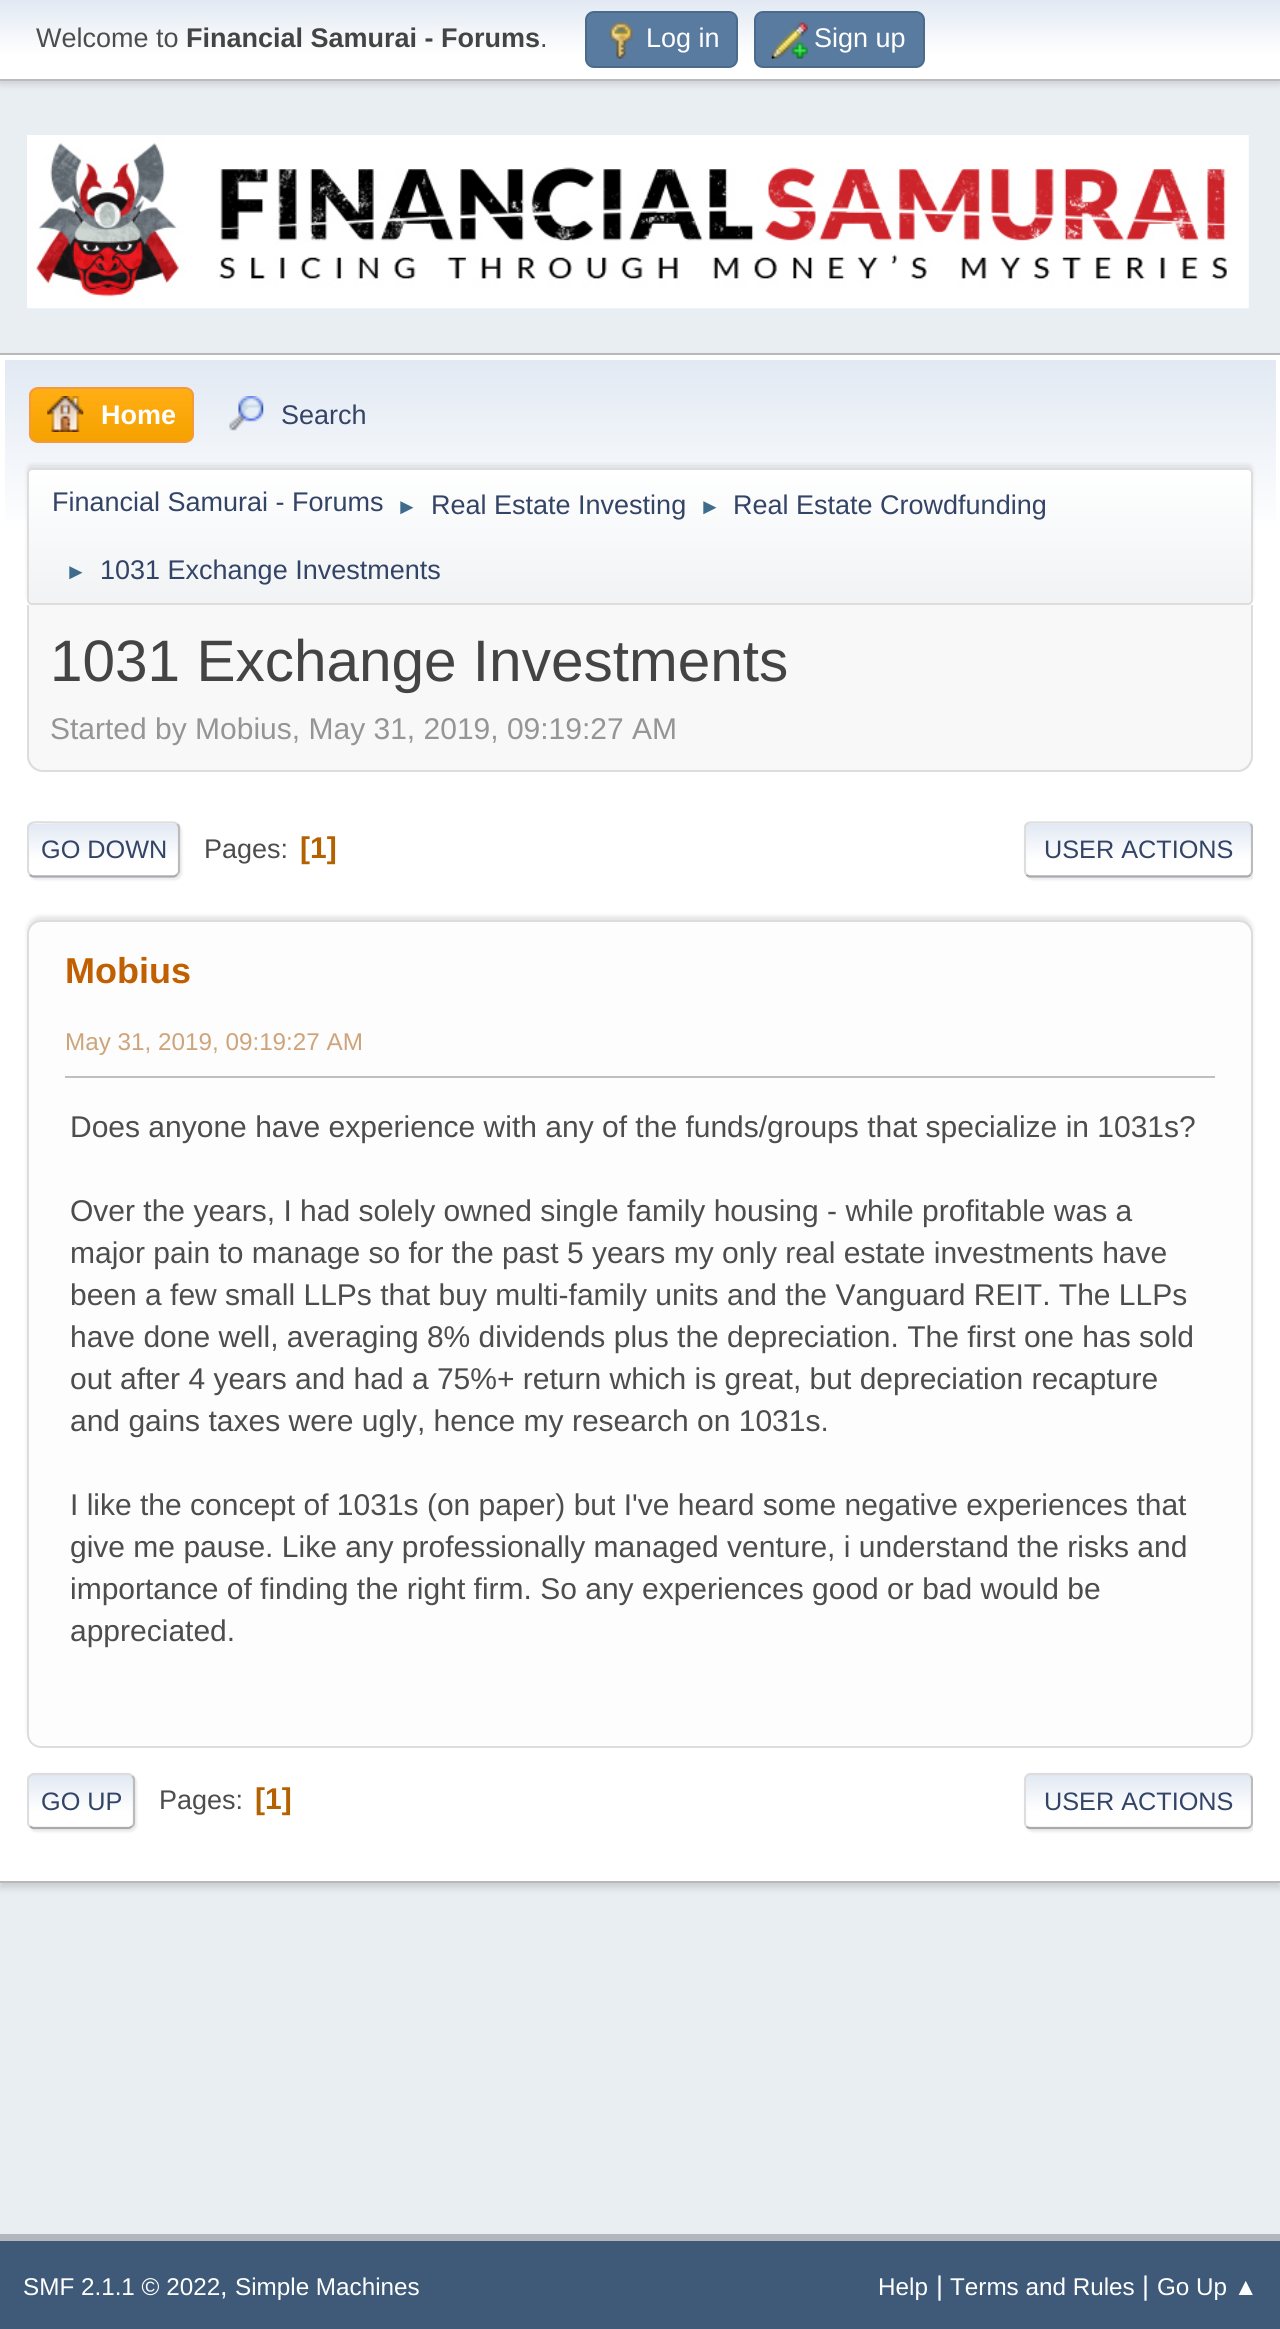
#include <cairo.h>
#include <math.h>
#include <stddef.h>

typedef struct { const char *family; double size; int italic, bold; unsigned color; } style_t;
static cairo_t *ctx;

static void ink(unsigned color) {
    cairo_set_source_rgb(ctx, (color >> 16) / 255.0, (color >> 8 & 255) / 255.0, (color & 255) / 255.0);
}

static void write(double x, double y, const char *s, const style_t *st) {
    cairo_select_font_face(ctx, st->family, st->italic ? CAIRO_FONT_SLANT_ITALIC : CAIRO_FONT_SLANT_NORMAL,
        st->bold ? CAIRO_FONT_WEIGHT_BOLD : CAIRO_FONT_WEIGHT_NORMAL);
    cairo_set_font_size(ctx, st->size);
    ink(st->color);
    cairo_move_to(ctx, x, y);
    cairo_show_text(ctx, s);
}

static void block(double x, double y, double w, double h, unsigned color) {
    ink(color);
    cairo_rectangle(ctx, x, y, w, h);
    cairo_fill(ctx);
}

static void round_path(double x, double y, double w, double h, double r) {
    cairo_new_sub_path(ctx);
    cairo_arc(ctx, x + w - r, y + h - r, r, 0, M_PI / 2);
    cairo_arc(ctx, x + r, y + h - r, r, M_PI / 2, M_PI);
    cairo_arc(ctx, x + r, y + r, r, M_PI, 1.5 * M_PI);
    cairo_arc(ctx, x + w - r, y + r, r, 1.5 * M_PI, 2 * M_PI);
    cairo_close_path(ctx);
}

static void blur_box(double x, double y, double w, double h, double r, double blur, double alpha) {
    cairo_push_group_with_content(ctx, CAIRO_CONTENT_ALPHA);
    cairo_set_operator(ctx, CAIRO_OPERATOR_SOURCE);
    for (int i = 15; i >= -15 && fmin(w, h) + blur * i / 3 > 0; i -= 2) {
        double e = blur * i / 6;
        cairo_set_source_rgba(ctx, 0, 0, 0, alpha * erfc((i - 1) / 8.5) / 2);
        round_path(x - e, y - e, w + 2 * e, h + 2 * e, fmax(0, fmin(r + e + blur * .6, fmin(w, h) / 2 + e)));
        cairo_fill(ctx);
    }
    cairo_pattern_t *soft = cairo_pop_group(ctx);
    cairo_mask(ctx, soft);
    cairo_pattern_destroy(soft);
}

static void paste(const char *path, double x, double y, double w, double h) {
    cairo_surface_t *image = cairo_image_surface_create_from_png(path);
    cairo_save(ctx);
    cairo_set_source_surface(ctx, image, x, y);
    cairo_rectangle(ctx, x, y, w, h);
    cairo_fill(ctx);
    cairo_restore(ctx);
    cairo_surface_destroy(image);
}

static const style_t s1 = {"Liberation Sans", 27, 0, 0, 0x4d4d4d};
static const style_t s2 = {"Liberation Sans", 27, 0, 1, 0x444444};
static const style_t s3 = {"Liberation Sans", 27, 0, 0, 0xffffff};
static const style_t s4 = {"Liberation Sans", 27, 0, 1, 0xffffff};
static const style_t s5 = {"Liberation Sans", 27, 0, 0, 0x334466};
static const style_t s6 = {"Liberation Sans", 22, 0, 0, 0x3f6b8c};
static const style_t s7 = {"Liberation Sans", 58.5, 0, 0, 0x444444};
static const style_t s8 = {"Liberation Sans", 30, 0, 0, 0x959595};
static const style_t s9 = {"Liberation Sans", 25.25, 0, 0, 0x334466};
static const style_t s10 = {"Liberation Sans", 30, 0, 1, 0xb46100};
static const style_t s11 = {"Liberation Sans", 36, 0, 1, 0xc06002};
static const style_t s12 = {"Liberation Sans", 24.25, 0, 0, 0xcda47b};
static const style_t s13 = {"Liberation Sans", 30, 0, 0, 0x4d4d4d};
static const style_t s14 = {"Liberation Sans", 24.25, 0, 0, 0xffffff};

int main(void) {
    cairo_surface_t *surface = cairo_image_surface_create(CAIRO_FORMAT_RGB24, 1280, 2329);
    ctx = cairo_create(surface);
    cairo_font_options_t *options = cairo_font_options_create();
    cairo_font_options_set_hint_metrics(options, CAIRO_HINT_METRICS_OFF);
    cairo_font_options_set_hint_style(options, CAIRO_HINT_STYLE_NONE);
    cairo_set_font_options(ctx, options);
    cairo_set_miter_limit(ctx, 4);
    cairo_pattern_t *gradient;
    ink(0xe9eef2);
    cairo_paint(ctx);
    ink(0x000000);
    blur_box(0, 2, 1280, 81, 0, 4.5, 0.16);
    gradient = cairo_pattern_create_linear(640, 0, 640, 79);
    cairo_pattern_add_color_stop_rgba(gradient, 0, 0.886, 0.914, 0.953, 1);
    cairo_pattern_add_color_stop_rgba(gradient, 0.7, 1, 1, 1, 1);
    cairo_set_source(ctx, gradient);
    cairo_pattern_destroy(gradient);
    cairo_rectangle(ctx, 0, 0, 1280, 79);
    cairo_fill(ctx);
    block(0, 79, 1280, 2, 0xbbbbbb);
    write(36, 47, "Welcome to", &s1);
    write(186, 47, "Financial Samurai - Forums", &s2);
    write(540, 47, ".", &s1);
    ink(0x597b9f);
    round_path(586, 12, 151, 55, 8);
    cairo_fill_preserve(ctx);
    ink(0x4a6b8c);
    cairo_stroke(ctx);
    paste("pic1.png", 609, 22, 24, 37);
    write(646, 47, "Log in", &s3);
    ink(0x597b9f);
    round_path(755, 12, 169, 55, 8);
    cairo_fill_preserve(ctx);
    ink(0x4a6b8c);
    cairo_stroke(ctx);
    paste("pic2.png", 771, 22, 37, 37);
    write(814, 47, "Sign up", &s3);
    paste("pic3.png", 27, 135, 1222, 174);
    ink(0x000000);
    blur_box(0, 358, 1280, 1530, 0, 3.5, 0.14);
    block(0, 355, 1280, 1526, 0xffffff);
    block(0, 353, 1280, 2, 0xb8b8b8);
    block(0, 1881, 1280, 2, 0xb8b8b8);
    gradient = cairo_pattern_create_linear(640, 360, 640, 610);
    cairo_pattern_add_color_stop_rgba(gradient, 0, 0.886, 0.914, 0.953, 1);
    cairo_pattern_add_color_stop_rgba(gradient, 0.7, 1, 1, 1, 1);
    cairo_set_source(ctx, gradient);
    cairo_pattern_destroy(gradient);
    cairo_rectangle(ctx, 5, 360, 1271, 160);
    cairo_fill(ctx);
    cairo_save(ctx);
    round_path(29, 387, 165, 56, 9);
    cairo_clip(ctx);
    gradient = cairo_pattern_create_linear(111, 389, 111, 441);
    cairo_pattern_add_color_stop_rgba(gradient, 0, 1, 0.682, 0.078, 1);
    cairo_pattern_add_color_stop_rgba(gradient, 1, 0.961, 0.631, 0, 1);
    cairo_set_source(ctx, gradient);
    cairo_pattern_destroy(gradient);
    cairo_rectangle(ctx, 29, 389, 165, 52);
    cairo_fill(ctx);
    cairo_restore(ctx);
    round_path(30, 388, 163, 54, 8);
    ink(0xf49a3a);
    cairo_stroke(ctx);
    paste("pic4.png", 47, 396, 37, 36);
    write(101, 424, "Home", &s4);
    paste("pic5.png", 229, 396, 35, 35);
    write(281, 424, "Search", &s5);
    ink(0x000000);
    blur_box(27, 464, 1226, 137, 5, 2, 0.08);
    cairo_save(ctx);
    round_path(27, 468, 1226, 137, 5);
    cairo_clip(ctx);
    gradient = cairo_pattern_create_linear(640, 470, 640, 603);
    cairo_pattern_add_color_stop_rgba(gradient, 0, 1, 1, 1, 1);
    cairo_pattern_add_color_stop_rgba(gradient, 0.95, 0.945, 0.953, 0.961, 1);
    cairo_set_source(ctx, gradient);
    cairo_pattern_destroy(gradient);
    cairo_rectangle(ctx, 27, 470, 1226, 133);
    cairo_fill(ctx);
    cairo_restore(ctx);
    round_path(28, 469, 1224, 135, 4);
    ink(0xdddddd);
    cairo_stroke(ctx);
    write(52, 511, "Financial Samurai - Forums", &s5);
    write(396, 514, "►", &s6);
    write(431, 514, "Real Estate Investing", &s5);
    write(699, 514, "►", &s6);
    write(733, 514, "Real Estate Crowdfunding", &s5);
    write(65, 579, "►", &s6);
    write(100, 579, "1031 Exchange Investments", &s5);
    ink(0xf8f8f8);
    cairo_new_path(ctx);
    cairo_move_to(ctx, 27, 605);
    cairo_line_to(ctx, 1253, 605);
    cairo_line_to(ctx, 1253, 756);
    cairo_curve_to(ctx, 1253, 765, 1246, 772, 1237, 772);
    cairo_line_to(ctx, 43, 772);
    cairo_curve_to(ctx, 34, 772, 27, 765, 27, 756);
    cairo_close_path(ctx);
    cairo_fill(ctx);
    ink(0xdddddd);
    cairo_set_fill_rule(ctx, CAIRO_FILL_RULE_EVEN_ODD);
    cairo_new_path(ctx);
    cairo_move_to(ctx, 27, 605);
    cairo_line_to(ctx, 1253, 605);
    cairo_line_to(ctx, 1253, 756);
    cairo_curve_to(ctx, 1253, 765, 1246, 772, 1238, 772);
    cairo_line_to(ctx, 43, 772);
    cairo_curve_to(ctx, 34, 772, 27, 765, 27, 756);
    cairo_close_path(ctx);
    cairo_move_to(ctx, 29, 605);
    cairo_line_to(ctx, 1251, 605);
    cairo_line_to(ctx, 1251, 756);
    cairo_curve_to(ctx, 1251, 763, 1245, 770, 1238, 770);
    cairo_line_to(ctx, 43, 770);
    cairo_curve_to(ctx, 35, 770, 29, 763, 29, 756);
    cairo_close_path(ctx);
    cairo_fill(ctx);
    write(50, 681, "1031 Exchange Investments", &s7);
    write(50, 739, "Started by Mobius, May 31, 2019, 09:19:27 AM", &s8);
    ink(0xdddddd);
    blur_box(29, 824, 153, 56, 7, 1, 0.57);
    ink(0xffffff);
    round_path(27, 821, 153, 57, 7);
    cairo_fill(ctx);
    cairo_save(ctx);
    cairo_set_fill_rule(ctx, CAIRO_FILL_RULE_WINDING);
    round_path(27, 821, 153, 57, 7);
    cairo_clip(ctx);
    gradient = cairo_pattern_create_linear(104, 824, 104, 875);
    cairo_pattern_add_color_stop_rgba(gradient, 0, 0.886, 0.914, 0.953, 1);
    cairo_pattern_add_color_stop_rgba(gradient, 0.7, 1, 1, 1, 1);
    cairo_set_source(ctx, gradient);
    cairo_pattern_destroy(gradient);
    cairo_rectangle(ctx, 27, 824, 153, 51);
    cairo_fill(ctx);
    gradient = cairo_pattern_create_linear(104, 875, 104, 927);
    cairo_pattern_add_color_stop_rgba(gradient, 0, 0.886, 0.914, 0.953, 1);
    cairo_pattern_add_color_stop_rgba(gradient, 0.7, 1, 1, 1, 1);
    cairo_set_source(ctx, gradient);
    cairo_pattern_destroy(gradient);
    cairo_rectangle(ctx, 27, 875, 153, 3);
    cairo_fill(ctx);
    cairo_restore(ctx);
    cairo_new_path(ctx);
    cairo_move_to(ctx, 177, 824);
    cairo_curve_to(ctx, 178.5, 825, 179, 826.5, 179, 828);
    cairo_line_to(ctx, 179, 871);
    cairo_curve_to(ctx, 179, 872, 178.5, 873.5, 177, 874.5);
    ink(0xbbbbbb);
    cairo_set_line_width(ctx, 2.2);
    cairo_stroke(ctx);
    cairo_new_path(ctx);
    cairo_move_to(ctx, 177, 874.5);
    cairo_curve_to(ctx, 176, 876, 174.5, 876.5, 173, 876.5);
    cairo_line_to(ctx, 34, 876.5);
    cairo_curve_to(ctx, 32.5, 876.5, 31, 876, 30, 874.5);
    ink(0xaaaaaa);
    cairo_stroke(ctx);
    cairo_save(ctx);
    cairo_set_fill_rule(ctx, CAIRO_FILL_RULE_WINDING);
    cairo_rectangle(ctx, 27, 806, 1226, 87);
    cairo_clip(ctx);
    cairo_new_path(ctx);
    cairo_move_to(ctx, 30, 874.5);
    cairo_curve_to(ctx, 27, 872, 28, 866.5, 28, 863.5);
    cairo_line_to(ctx, 28, 849.5);
    cairo_curve_to(ctx, 28, 817.5, 23, 822.5, 57, 822.5);
    cairo_line_to(ctx, 173, 822.5);
    cairo_curve_to(ctx, 174.5, 822.5, 176, 823, 177, 824);
    ink(0xdddddd);
    cairo_stroke(ctx);
    cairo_restore(ctx);
    write(41, 858, "GO DOWN", &s9);
    write(204, 858, "Pages:", &s1);
    write(300, 858, "[1]", &s10);
    cairo_save(ctx);
    cairo_set_fill_rule(ctx, CAIRO_FILL_RULE_WINDING);
    cairo_rectangle(ctx, 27, 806, 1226, 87);
    cairo_clip(ctx);
    ink(0xdddddd);
    blur_box(1026, 824, 230, 56, 7, 1, 0.57);
    cairo_restore(ctx);
    ink(0xffffff);
    round_path(1024, 821, 229, 57, 7);
    cairo_fill(ctx);
    cairo_save(ctx);
    cairo_set_fill_rule(ctx, CAIRO_FILL_RULE_WINDING);
    round_path(1024, 821, 229, 57, 7);
    cairo_clip(ctx);
    gradient = cairo_pattern_create_linear(1139, 824, 1139, 875);
    cairo_pattern_add_color_stop_rgba(gradient, 0, 0.886, 0.914, 0.953, 1);
    cairo_pattern_add_color_stop_rgba(gradient, 0.7, 1, 1, 1, 1);
    cairo_set_source(ctx, gradient);
    cairo_pattern_destroy(gradient);
    cairo_rectangle(ctx, 1024, 824, 229, 51);
    cairo_fill(ctx);
    gradient = cairo_pattern_create_linear(1139, 875, 1139, 927);
    cairo_pattern_add_color_stop_rgba(gradient, 0, 0.886, 0.914, 0.953, 1);
    cairo_pattern_add_color_stop_rgba(gradient, 0.7, 1, 1, 1, 1);
    cairo_set_source(ctx, gradient);
    cairo_pattern_destroy(gradient);
    cairo_rectangle(ctx, 1024, 875, 229, 3);
    cairo_fill(ctx);
    cairo_restore(ctx);
    cairo_save(ctx);
    cairo_set_fill_rule(ctx, CAIRO_FILL_RULE_WINDING);
    cairo_rectangle(ctx, 27, 806, 1226, 87);
    cairo_clip(ctx);
    cairo_new_path(ctx);
    cairo_move_to(ctx, 1250.5, 824);
    cairo_curve_to(ctx, 1251.5, 825, 1252, 826.5, 1252, 828);
    cairo_line_to(ctx, 1252, 871);
    cairo_curve_to(ctx, 1252, 872, 1251.5, 873.5, 1250.5, 874.5);
    ink(0xbbbbbb);
    cairo_stroke(ctx);
    cairo_restore(ctx);
    cairo_new_path(ctx);
    cairo_move_to(ctx, 1250.5, 874.5);
    cairo_curve_to(ctx, 1249.5, 876, 1248, 876.5, 1246.5, 876.5);
    cairo_line_to(ctx, 1030.5, 876.5);
    cairo_curve_to(ctx, 1029, 876.5, 1027.5, 876, 1026.5, 874.5);
    ink(0xaaaaaa);
    cairo_stroke(ctx);
    cairo_new_path(ctx);
    cairo_move_to(ctx, 1026.5, 874.5);
    cairo_curve_to(ctx, 1025.5, 873.5, 1025, 872, 1025, 871);
    cairo_line_to(ctx, 1025, 828);
    cairo_curve_to(ctx, 1025, 826.5, 1025.5, 825, 1026.5, 824);
    cairo_curve_to(ctx, 1027.5, 823, 1029, 822.5, 1030.5, 822.5);
    cairo_line_to(ctx, 1246.5, 822.5);
    cairo_curve_to(ctx, 1248, 822.5, 1249.5, 823, 1250.5, 824);
    ink(0xdddddd);
    cairo_stroke(ctx);
    write(1044, 858, "USER ACTIONS", &s9);
    ink(0x000000);
    blur_box(27, 916, 1226, 828, 14, 2, 0.1);
    ink(0xfdfdfd);
    round_path(28, 921, 1224, 826, 13);
    cairo_fill_preserve(ctx);
    ink(0xdddddd);
    cairo_set_line_width(ctx, 2);
    cairo_stroke(ctx);
    write(65, 983, "Mobius", &s11);
    write(65, 1050, "May 31, 2019, 09:19:27 AM", &s12);
    block(65, 1076, 1150, 2, 0xbfbfbf);
    write(70, 1137, "Does anyone have experience with any of the funds/groups that specialize in 1031s?", &s13);
    write(70, 1221, "Over the years, I had solely owned single family housing - while profitable was a", &s13);
    write(70, 1263, "major pain to manage so for the past 5 years my only real estate investments have", &s13);
    write(70, 1305, "been a few small LLPs that buy multi-family units and the Vanguard REIT. The LLPs", &s13);
    write(70, 1347, "have done well, averaging 8% dividends plus the depreciation. The first one has sold", &s13);
    write(70, 1389, "out after 4 years and had a 75%+ return which is great, but depreciation recapture", &s13);
    write(70, 1431, "and gains taxes were ugly, hence my research on 1031s.", &s13);
    write(70, 1515, "I like the concept of 1031s (on paper) but I've heard some negative experiences that", &s13);
    write(70, 1557, "give me pause. Like any professionally managed venture, i understand the risks and", &s13);
    write(70, 1599, "importance of finding the right firm. So any experiences good or bad would be", &s13);
    write(70, 1641, "appreciated.", &s13);
    ink(0xdddddd);
    blur_box(29, 1775, 108, 57, 7, 1, 0.57);
    cairo_save(ctx);
    cairo_set_fill_rule(ctx, CAIRO_FILL_RULE_WINDING);
    round_path(27, 1773, 108, 56, 7);
    cairo_clip(ctx);
    gradient = cairo_pattern_create_linear(81, 1775, 81, 1827);
    cairo_pattern_add_color_stop_rgba(gradient, 0, 0.886, 0.914, 0.953, 1);
    cairo_pattern_add_color_stop_rgba(gradient, 0.7, 1, 1, 1, 1);
    cairo_set_source(ctx, gradient);
    cairo_pattern_destroy(gradient);
    cairo_rectangle(ctx, 27, 1775, 108, 52);
    cairo_fill(ctx);
    cairo_restore(ctx);
    cairo_new_path(ctx);
    cairo_move_to(ctx, 132, 1776);
    cairo_curve_to(ctx, 133.5, 1777, 134, 1778.5, 134, 1780);
    cairo_line_to(ctx, 134, 1822.5);
    cairo_curve_to(ctx, 134, 1824, 133.5, 1825.5, 132, 1826.5);
    ink(0xbbbbbb);
    cairo_set_line_width(ctx, 2.2);
    cairo_stroke(ctx);
    cairo_new_path(ctx);
    cairo_move_to(ctx, 132, 1826.5);
    cairo_line_to(ctx, 129, 1828);
    cairo_line_to(ctx, 33, 1828);
    cairo_line_to(ctx, 30, 1826.5);
    ink(0xaaaaaa);
    cairo_stroke(ctx);
    cairo_save(ctx);
    cairo_set_fill_rule(ctx, CAIRO_FILL_RULE_WINDING);
    cairo_rectangle(ctx, 27, 1757, 1226, 88);
    cairo_clip(ctx);
    cairo_new_path(ctx);
    cairo_move_to(ctx, 30, 1826.5);
    cairo_curve_to(ctx, 28.5, 1825.5, 28, 1824, 28, 1822.5);
    cairo_line_to(ctx, 28, 1780);
    cairo_curve_to(ctx, 28, 1778.5, 28.5, 1777, 30, 1776);
    cairo_curve_to(ctx, 31, 1774.5, 32.5, 1774, 34, 1774);
    cairo_line_to(ctx, 128, 1774);
    cairo_curve_to(ctx, 129.5, 1774, 131, 1774.5, 132, 1776);
    ink(0xdddddd);
    cairo_stroke(ctx);
    cairo_restore(ctx);
    write(41, 1810, "GO UP", &s9);
    write(159, 1809, "Pages:", &s1);
    write(255, 1809, "[1]", &s10);
    cairo_save(ctx);
    cairo_set_fill_rule(ctx, CAIRO_FILL_RULE_WINDING);
    cairo_rectangle(ctx, 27, 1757, 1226, 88);
    cairo_clip(ctx);
    ink(0xdddddd);
    blur_box(1026, 1775, 230, 57, 7, 1, 0.57);
    cairo_restore(ctx);
    cairo_save(ctx);
    cairo_set_fill_rule(ctx, CAIRO_FILL_RULE_WINDING);
    round_path(1024, 1773, 229, 56, 7);
    cairo_clip(ctx);
    gradient = cairo_pattern_create_linear(1139, 1775, 1139, 1827);
    cairo_pattern_add_color_stop_rgba(gradient, 0, 0.886, 0.914, 0.953, 1);
    cairo_pattern_add_color_stop_rgba(gradient, 0.7, 1, 1, 1, 1);
    cairo_set_source(ctx, gradient);
    cairo_pattern_destroy(gradient);
    cairo_rectangle(ctx, 1024, 1775, 229, 52);
    cairo_fill(ctx);
    cairo_restore(ctx);
    cairo_save(ctx);
    cairo_set_fill_rule(ctx, CAIRO_FILL_RULE_WINDING);
    cairo_rectangle(ctx, 27, 1757, 1226, 88);
    cairo_clip(ctx);
    cairo_new_path(ctx);
    cairo_move_to(ctx, 1250.5, 1776);
    cairo_curve_to(ctx, 1251.5, 1777, 1252, 1778.5, 1252, 1780);
    cairo_line_to(ctx, 1252, 1822.5);
    cairo_curve_to(ctx, 1252, 1824, 1251.5, 1825.5, 1250.5, 1826.5);
    ink(0xbbbbbb);
    cairo_stroke(ctx);
    cairo_restore(ctx);
    cairo_new_path(ctx);
    cairo_move_to(ctx, 1250.5, 1826.5);
    cairo_curve_to(ctx, 1249.5, 1827.5, 1248, 1828, 1246.5, 1828);
    cairo_line_to(ctx, 1030.5, 1828);
    cairo_curve_to(ctx, 1029, 1828, 1027.5, 1827.5, 1026.5, 1826.5);
    ink(0xaaaaaa);
    cairo_stroke(ctx);
    cairo_new_path(ctx);
    cairo_move_to(ctx, 1026.5, 1826.5);
    cairo_curve_to(ctx, 1025.5, 1825.5, 1025, 1824, 1025, 1822.5);
    cairo_line_to(ctx, 1025, 1780);
    cairo_curve_to(ctx, 1025, 1778.5, 1025.5, 1777, 1026.5, 1776);
    cairo_curve_to(ctx, 1027.5, 1774.5, 1029, 1774, 1030.5, 1774);
    cairo_line_to(ctx, 1246.5, 1774);
    cairo_curve_to(ctx, 1248, 1774, 1249.5, 1774.5, 1250.5, 1776);
    ink(0xdddddd);
    cairo_stroke(ctx);
    write(1044, 1810, "USER ACTIONS", &s9);
    block(0, 2241, 1280, 88, 0x3e5a78);
    block(0, 2234, 1280, 7, 0xb2b6bd);
    write(23, 2295, "SMF 2.1.1 © 2022", &s14);
    write(220, 2295, ",", &s3);
    write(235, 2295, "Simple Machines", &s14);
    write(878, 2295, "Help", &s14);
    write(936, 2295, "|", &s3);
    write(950, 2295, "Terms and Rules", &s14);
    write(1142, 2295, "|", &s3);
    write(1157, 2295, "Go Up ▲", &s14);
    cairo_surface_write_to_png(surface, "screenshot.png");
    cairo_font_options_destroy(options);
    cairo_destroy(ctx);
    cairo_surface_destroy(surface);
    return 0;
}
